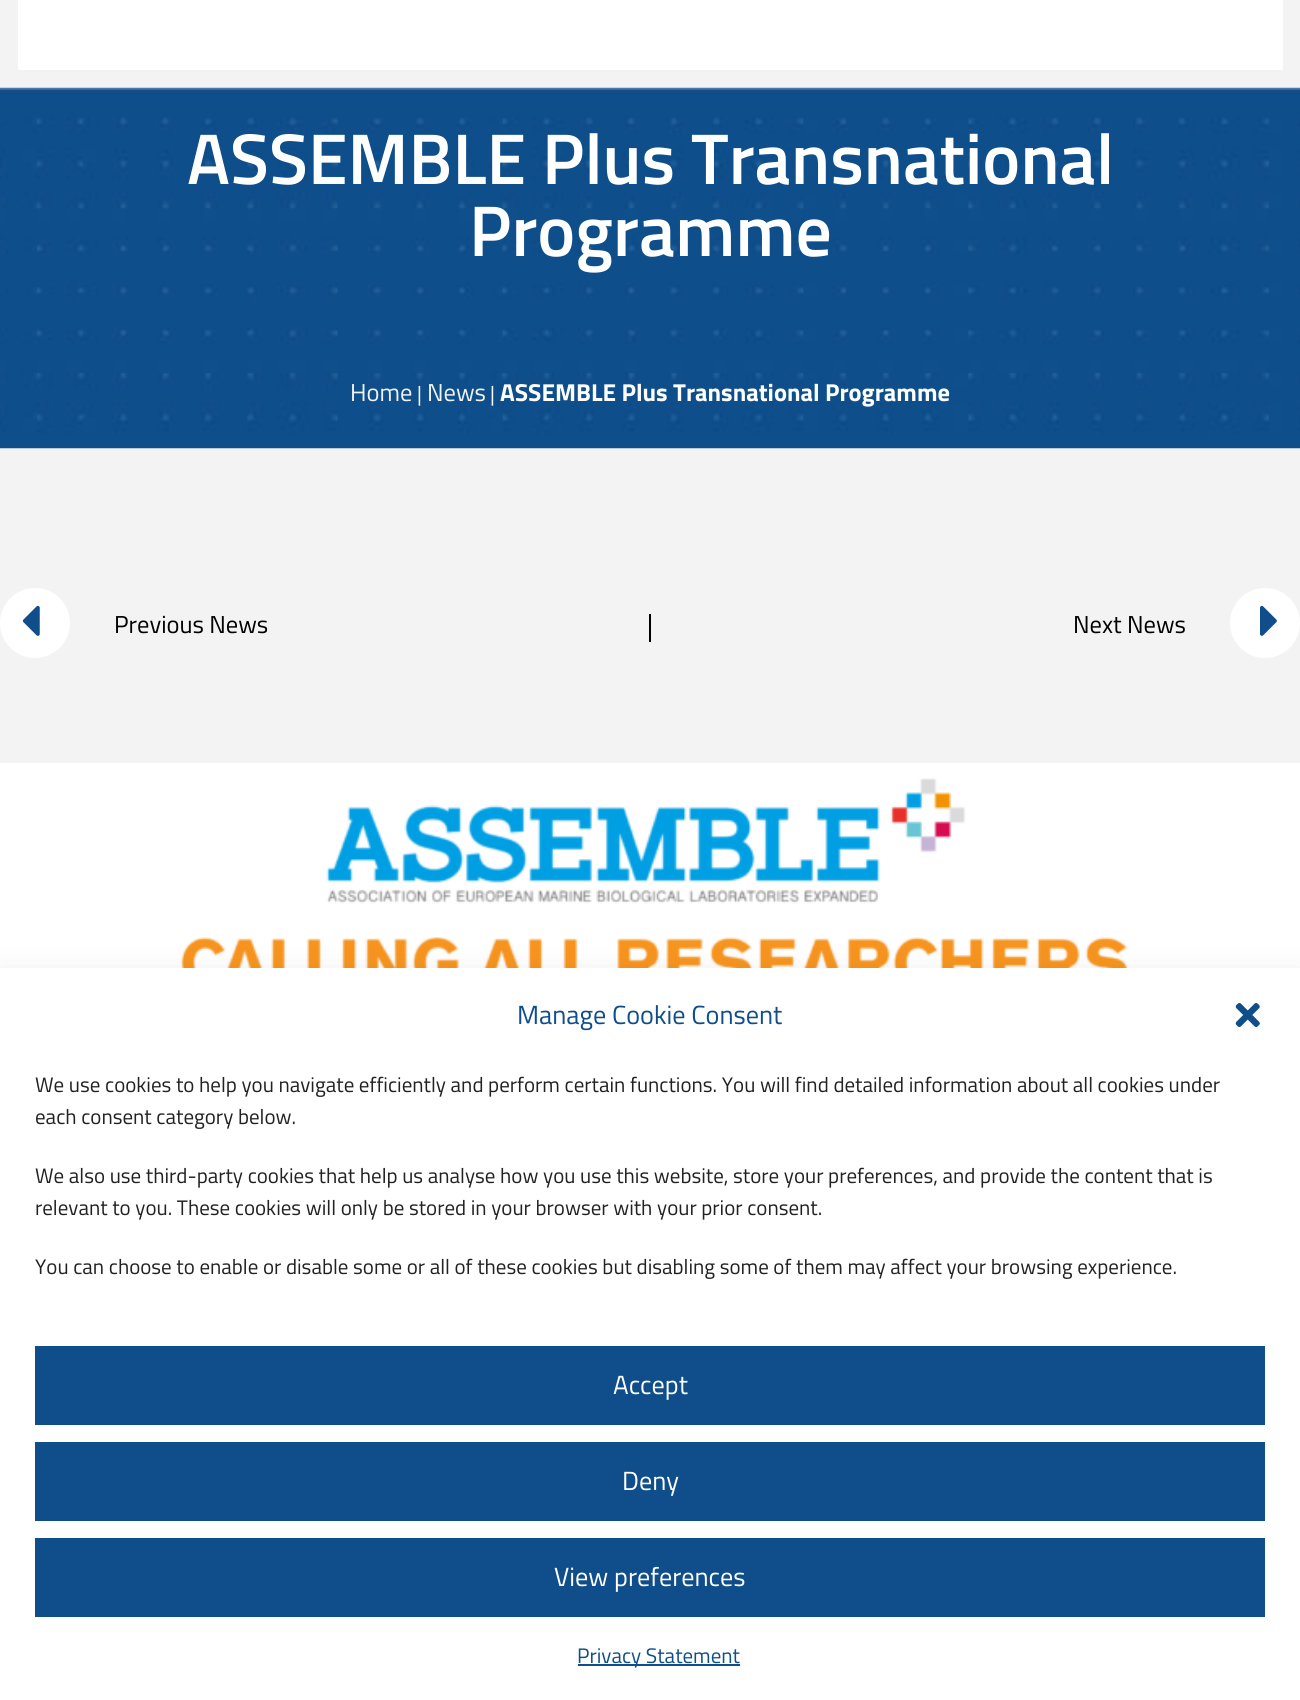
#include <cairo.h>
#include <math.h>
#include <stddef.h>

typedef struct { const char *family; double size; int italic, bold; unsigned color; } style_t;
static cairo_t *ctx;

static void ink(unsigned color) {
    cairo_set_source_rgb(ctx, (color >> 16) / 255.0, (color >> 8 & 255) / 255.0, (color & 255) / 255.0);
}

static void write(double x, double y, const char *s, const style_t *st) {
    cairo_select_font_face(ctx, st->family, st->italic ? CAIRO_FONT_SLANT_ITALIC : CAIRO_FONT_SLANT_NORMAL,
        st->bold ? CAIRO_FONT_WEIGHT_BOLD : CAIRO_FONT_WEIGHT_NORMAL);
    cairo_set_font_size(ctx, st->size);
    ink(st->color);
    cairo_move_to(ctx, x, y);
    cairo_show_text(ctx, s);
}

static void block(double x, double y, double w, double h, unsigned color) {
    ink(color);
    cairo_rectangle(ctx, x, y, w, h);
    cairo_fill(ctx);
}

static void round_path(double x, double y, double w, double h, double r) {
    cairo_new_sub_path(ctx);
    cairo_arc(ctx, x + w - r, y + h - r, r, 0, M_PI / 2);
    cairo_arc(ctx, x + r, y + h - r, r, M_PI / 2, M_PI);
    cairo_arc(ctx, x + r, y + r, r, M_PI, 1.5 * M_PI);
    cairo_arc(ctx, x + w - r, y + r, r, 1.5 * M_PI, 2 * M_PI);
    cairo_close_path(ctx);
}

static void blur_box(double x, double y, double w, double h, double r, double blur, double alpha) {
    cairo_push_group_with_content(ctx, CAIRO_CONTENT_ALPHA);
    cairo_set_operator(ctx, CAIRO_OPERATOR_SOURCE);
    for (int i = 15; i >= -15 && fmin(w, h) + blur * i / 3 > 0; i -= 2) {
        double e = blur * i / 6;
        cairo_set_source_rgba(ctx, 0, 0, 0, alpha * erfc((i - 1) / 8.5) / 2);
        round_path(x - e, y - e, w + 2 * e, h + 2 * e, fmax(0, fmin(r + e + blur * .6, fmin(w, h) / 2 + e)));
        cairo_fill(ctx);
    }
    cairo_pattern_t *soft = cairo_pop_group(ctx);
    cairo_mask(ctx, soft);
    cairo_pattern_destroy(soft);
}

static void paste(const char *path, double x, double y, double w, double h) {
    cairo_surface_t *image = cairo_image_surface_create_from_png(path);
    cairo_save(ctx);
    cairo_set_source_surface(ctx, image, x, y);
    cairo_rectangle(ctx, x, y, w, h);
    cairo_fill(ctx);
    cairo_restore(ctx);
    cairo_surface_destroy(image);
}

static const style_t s1 = {"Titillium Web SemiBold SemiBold", 71.75, 0, 0, 0xffffff};
static const style_t s2 = {"Titillium Web", 24.5, 0, 0, 0xf2f2f2};
static const style_t s3 = {"Titillium Web", 21, 0, 0, 0xffffff};
static const style_t s4 = {"Titillium Web", 24.5, 0, 1, 0xffffff};
static const style_t s5 = {"Titillium Web", 24.5, 0, 0, 0x000000};
static const style_t s6 = {"Titillium Web", 26.25, 0, 0, 0x0f4e8a};
static const style_t s7 = {"Titillium Web", 21, 0, 0, 0x222222};
static const style_t s8 = {"Titillium Web", 26.25, 0, 0, 0xffffff};
static const style_t s9 = {"Titillium Web", 21, 0, 0, 0x0f4e8a};

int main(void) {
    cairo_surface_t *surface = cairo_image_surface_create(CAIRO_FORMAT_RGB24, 1300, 1700);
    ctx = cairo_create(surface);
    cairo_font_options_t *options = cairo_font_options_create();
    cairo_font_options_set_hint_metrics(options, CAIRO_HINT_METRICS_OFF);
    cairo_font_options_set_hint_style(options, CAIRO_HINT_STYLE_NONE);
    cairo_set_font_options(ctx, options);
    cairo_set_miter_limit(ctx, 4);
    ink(0xf3f3f3);
    cairo_paint(ctx);
    block(18, 0, 1265, 70, 0xffffff);
    paste("pic1.png", 0, 87, 1300, 362);
    write(187, 184, "ASSEMBLE Plus Transnational", &s1);
    write(469, 256, "Programme", &s1);
    write(350, 401, "Home", &s2);
    write(417, 401, "|", &s3);
    write(427, 401, "News", &s2);
    write(490, 401, "|", &s3);
    write(500, 401, "ASSEMBLE Plus Transnational Programme", &s4);
    cairo_new_path(ctx);
    cairo_arc(ctx, 35, 623, 35, 0, 2 * M_PI);
    cairo_fill(ctx);
    paste("pic2.png", 22, 605, 18, 31);
    write(114, 633, "Previous News", &s5);
    block(649, 614, 2, 28, 0x000000);
    write(1073, 633, "Next News", &s5);
    ink(0xffffff);
    cairo_new_path(ctx);
    cairo_arc(ctx, 1265, 623, 35, 0, 2 * M_PI);
    cairo_fill(ctx);
    paste("pic3.png", 1260, 605, 17, 31);
    block(0, 763, 1300, 15, 0xffffff);
    paste("pic4.png", 0, 778, 1300, 190);
    ink(0x000000);
    blur_box(0, 985, 1300, 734, 0, 17.5, 0.19);
    block(0, 968, 1300, 732, 0xffffff);
    write(517, 1024, "Manage Cookie Consent", &s6);
    paste("pic5.png", 1235, 1003, 25, 24);
    write(35, 1092, "We use cookies to help you navigate efficiently and perform certain functions. You will find detailed information about all cookies under", &s7);
    write(35, 1124, "each consent category below.", &s7);
    write(35, 1183, "We also use third-party cookies that help us analyse how you use this website, store your preferences, and provide the content that is", &s7);
    write(35, 1215, "relevant to you. These cookies will only be stored in your browser with your prior consent.", &s7);
    write(35, 1274, "You can choose to enable or disable some or all of these cookies but disabling some of them may affect your browsing experience.", &s7);
    block(35, 1346, 1230, 79, 0x0f4e8a);
    write(613, 1394, "Accept", &s8);
    block(35, 1442, 1230, 79, 0x0f4e8a);
    write(622, 1490, "Deny", &s8);
    block(35, 1538, 1230, 79, 0x0f4e8a);
    write(554, 1586, "View preferences", &s8);
    block(578, 1664, 162, 2, 0x0f4e8a);
    write(577, 1663, "Privacy Statement", &s9);
    cairo_surface_write_to_png(surface, "screenshot.png");
    cairo_font_options_destroy(options);
    cairo_destroy(ctx);
    cairo_surface_destroy(surface);
    return 0;
}
